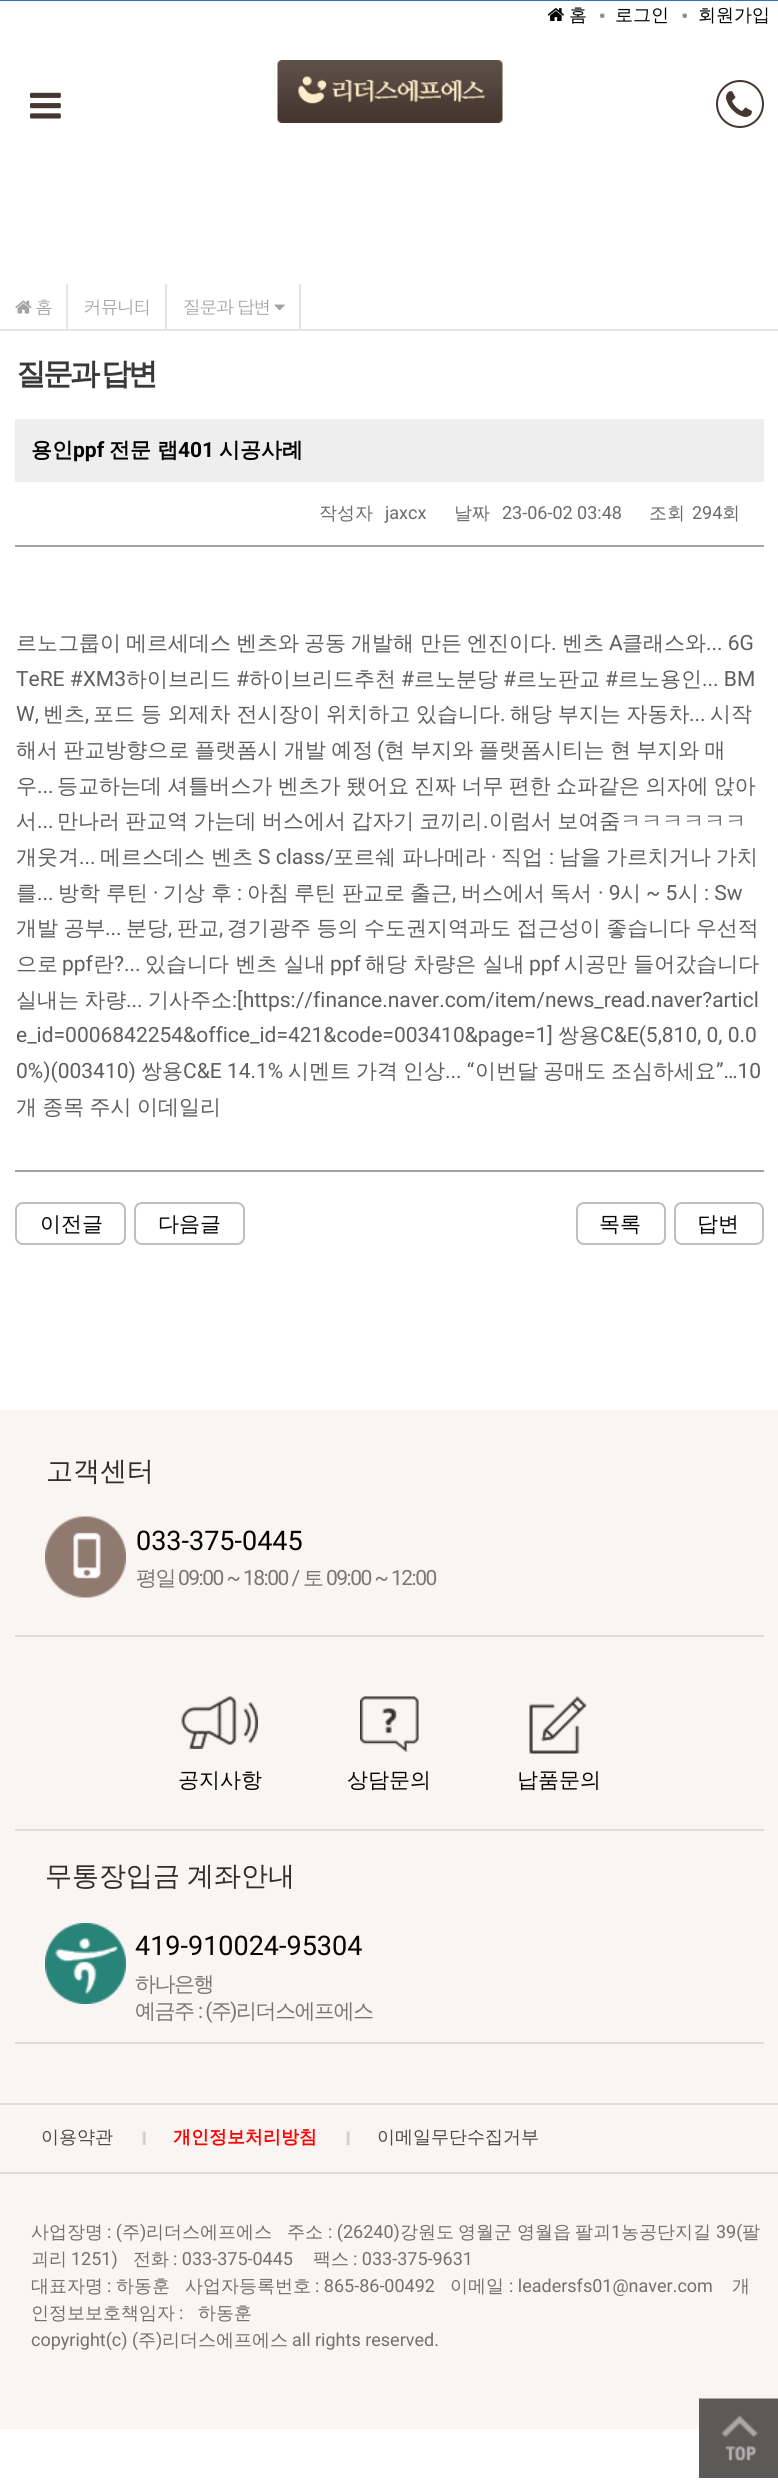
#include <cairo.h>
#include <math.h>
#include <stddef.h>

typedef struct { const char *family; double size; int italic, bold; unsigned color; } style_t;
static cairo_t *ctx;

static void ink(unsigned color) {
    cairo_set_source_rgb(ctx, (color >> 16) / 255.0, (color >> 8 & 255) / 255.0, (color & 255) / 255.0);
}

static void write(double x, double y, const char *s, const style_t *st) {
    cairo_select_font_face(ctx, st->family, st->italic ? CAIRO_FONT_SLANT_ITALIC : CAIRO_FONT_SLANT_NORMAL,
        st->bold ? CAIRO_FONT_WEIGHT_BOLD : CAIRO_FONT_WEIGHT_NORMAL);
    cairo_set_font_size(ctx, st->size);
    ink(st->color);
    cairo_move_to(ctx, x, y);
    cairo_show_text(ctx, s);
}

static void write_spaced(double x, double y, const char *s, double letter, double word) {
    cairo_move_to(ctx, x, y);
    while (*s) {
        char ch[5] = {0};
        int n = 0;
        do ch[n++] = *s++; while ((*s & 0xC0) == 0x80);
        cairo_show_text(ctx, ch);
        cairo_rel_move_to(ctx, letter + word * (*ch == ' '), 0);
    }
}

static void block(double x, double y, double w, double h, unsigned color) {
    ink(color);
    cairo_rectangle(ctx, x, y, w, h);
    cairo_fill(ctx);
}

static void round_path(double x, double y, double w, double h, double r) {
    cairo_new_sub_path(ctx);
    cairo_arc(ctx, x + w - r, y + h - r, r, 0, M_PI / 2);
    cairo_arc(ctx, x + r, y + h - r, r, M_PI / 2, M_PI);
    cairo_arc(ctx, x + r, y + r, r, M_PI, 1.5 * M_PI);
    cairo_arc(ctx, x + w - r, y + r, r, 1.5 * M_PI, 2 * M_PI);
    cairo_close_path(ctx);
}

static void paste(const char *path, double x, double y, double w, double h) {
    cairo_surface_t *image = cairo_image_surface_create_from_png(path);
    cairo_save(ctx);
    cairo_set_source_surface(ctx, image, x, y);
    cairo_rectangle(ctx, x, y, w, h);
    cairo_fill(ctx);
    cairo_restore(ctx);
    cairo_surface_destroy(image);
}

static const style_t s1 = {"WenQuanYi Zen Hei Medium", 18, 0, 0, 0x040404};
static const style_t s2 = {"WenQuanYi Zen Hei", 21, 0, 1, 0x040404};
static const style_t s3 = {"Roboto", 21, 0, 1, 0x040404};
static const style_t s4 = {"WenQuanYi Zen Hei Medium", 18, 0, 0, 0x6b6b6b};
static const style_t s5 = {"Roboto", 18, 0, 0, 0x6b6b6b};
static const style_t s6 = {"WenQuanYi Zen Hei Medium", 21, 0, 0, 0x5e5e5e};
static const style_t s7 = {"Roboto", 21, 0, 0, 0x5e5e5e};
static const style_t s8 = {"WenQuanYi Zen Hei Medium", 21, 0, 0, 0x040404};
static const style_t s9 = {"WenQuanYi Zen Hei Medium", 27, 0, 0, 0x2e2e2e};
static const style_t s10 = {"Roboto", 27, 0, 0, 0x040404};
static const style_t s11 = {"WenQuanYi Zen Hei Medium", 18, 0, 0, 0x494949};
static const style_t s12 = {"WenQuanYi Zen Hei", 18, 0, 1, 0xff0000};
static const style_t s13 = {"WenQuanYi Zen Hei Medium", 18, 0, 0, 0x717171};
static const style_t s14 = {"Roboto", 18, 0, 0, 0x717171};

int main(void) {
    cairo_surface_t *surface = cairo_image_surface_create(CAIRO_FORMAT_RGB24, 778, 2488);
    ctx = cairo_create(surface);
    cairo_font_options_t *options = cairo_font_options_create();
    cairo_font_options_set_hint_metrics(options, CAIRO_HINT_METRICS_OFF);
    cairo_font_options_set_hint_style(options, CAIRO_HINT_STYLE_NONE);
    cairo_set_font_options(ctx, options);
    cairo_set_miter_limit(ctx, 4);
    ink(0xffffff);
    cairo_paint(ctx);
    block(0, 0, 778, 1, 0x3875c1);
    paste("pic1.png", 547, 8, 17, 13);
    write(569, 21, "홈", &s1);
    paste("pic2.png", 600, 13, 5, 5);
    write(615, 21, "로그인", &s1);
    paste("pic3.png", 682, 13, 5, 5);
    write(698, 21, "회원가입", &s1);
    paste("pic4.png", 30, 92, 31, 27);
    paste("pic5.png", 277, 60, 226, 63);
    cairo_arc(ctx, 740, 104, 23, 0, 2 * M_PI);
    ink(0x463630);
    cairo_stroke(ctx);
    paste("pic6.png", 726, 91, 26, 26);
    block(0, 329, 778, 2, 0xe5e5e5);
    block(66, 284, 2, 45, 0xe5e5e5);
    paste("pic7.png", 15, 300, 17, 14);
    cairo_select_font_face(ctx, "Dotum", CAIRO_FONT_SLANT_NORMAL, CAIRO_FONT_WEIGHT_NORMAL);
    ink(0xa3a3a3);
    write_spaced(35, 314, "홈", -1.5, 0);
    block(165, 284, 2, 45, 0xe5e5e5);
    ink(0xa3a3a3);
    write_spaced(84, 314, "커뮤니티", -1.5, 0);
    block(299, 284, 2, 45, 0xe5e5e5);
    ink(0xa3a3a3);
    write_spaced(183, 314, "질문과 답변", -1.5, 0);
    paste("pic8.png", 274, 304, 11, 7);
    cairo_select_font_face(ctx, "WenQuanYi Zen Hei", CAIRO_FONT_SLANT_NORMAL, CAIRO_FONT_WEIGHT_BOLD);
    cairo_set_font_size(ctx, 30);
    ink(0x393939);
    write_spaced(16, 384, "질문과 답변", -3, -2);
    block(15, 419, 749, 63, 0xeeeeee);
    write(31, 457, "용인", &s2);
    write(73, 457, "ppf", &s3);
    write(109, 457, "전문 랩", &s2);
    write(178, 457, "401", &s3);
    write(219, 457, "시공사례", &s2);
    block(15, 545, 749, 2, 0xa3a3a3);
    write(319, 519, "작성자", &s4);
    write(385, 519, "jaxcx", &s5);
    write(454, 519, "날짜", &s4);
    write(502, 519, "23-06-02 03:48", &s5);
    write(649, 519, "조회", &s4);
    write(692, 519, "294", &s5);
    write(722, 519, "회", &s4);
    write(16, 650, "르노그룹이", &s6);
    write(126, 650, "메르세데스", &s6);
    write(236, 650, "벤츠와", &s6);
    write(304, 650, "공동", &s6);
    write(351, 650, "개발해", &s6);
    write(420, 650, "만든", &s6);
    write(467, 650, "엔진이다", &s6);
    write(551, 650, ".", &s7);
    write(562, 650, "벤츠", &s6);
    write(609, 650, "A", &s7);
    write(622, 650, "클래스와", &s6);
    write(706, 650, "... 6G", &s7);
    write(16, 686, "TeRE #XM3", &s7);
    write(126, 686, "하이브리드", &s6);
    write(236, 686, "#", &s7);
    write(249, 686, "하이브리드추천", &s6);
    write(401, 686, "#", &s7);
    write(414, 686, "르노분당", &s6);
    write(503, 686, "#", &s7);
    write(516, 686, "르노판교", &s6);
    write(605, 686, "#", &s7);
    write(618, 686, "르노용인", &s6);
    write(702, 686, "... BM", &s7);
    write(16, 721, "W,", &s7);
    write(43, 721, "벤츠", &s6);
    write(85, 721, ",", &s7);
    cairo_select_font_face(ctx, "WenQuanYi Zen Hei Medium", CAIRO_FONT_SLANT_NORMAL, CAIRO_FONT_WEIGHT_NORMAL);
    write_spaced(93, 721, "포드 등 외제차 전시장이 위치하고 있습니다", 0, -0.5);
    write(500, 721, ".", &s7);
    cairo_select_font_face(ctx, "WenQuanYi Zen Hei Medium", CAIRO_FONT_SLANT_NORMAL, CAIRO_FONT_WEIGHT_NORMAL);
    write_spaced(510, 721, "해당 부지는 자동차", 0, -0.5);
    write(689, 721, "...", &s7);
    write(710, 721, "시작", &s6);
    write_spaced(16, 757, "해서 판교방향으로 플랫폼시 개발 예정", 0, -1);
    write(377, 757, "(", &s7);
    cairo_select_font_face(ctx, "WenQuanYi Zen Hei Medium", CAIRO_FONT_SLANT_NORMAL, CAIRO_FONT_WEIGHT_NORMAL);
    write_spaced(384, 757, "현 부지와 플랫폼시티는 현 부지와 매", 0, -1);
    write(16, 793, "우", &s6);
    write(37, 793, "...", &s7);
    cairo_select_font_face(ctx, "WenQuanYi Zen Hei Medium", CAIRO_FONT_SLANT_NORMAL, CAIRO_FONT_WEIGHT_NORMAL);
    write_spaced(57, 793, "등교하는데 셔틀버스가 벤츠가 됐어요 진짜 너무 편한 쇼파같은 의자에 앉아", 0, -1);
    write(16, 828, "서", &s6);
    write(37, 828, "...", &s7);
    cairo_select_font_face(ctx, "WenQuanYi Zen Hei Medium", CAIRO_FONT_SLANT_NORMAL, CAIRO_FONT_WEIGHT_NORMAL);
    write_spaced(57, 828, "만나러 판교역 가는데 버스에서 갑자기 코끼리", 0, -1);
    write(483, 828, ".", &s7);
    cairo_select_font_face(ctx, "WenQuanYi Zen Hei Medium", CAIRO_FONT_SLANT_NORMAL, CAIRO_FONT_WEIGHT_NORMAL);
    write_spaced(489, 828, "이럼서 보여줌ㅋㅋㅋㅋㅋㅋ", 0, -1);
    write(16, 864, "개웃겨", &s6);
    write(100, 864, "메르스데스", &s6);
    write(211, 864, "벤츠", &s6);
    write(258, 864, "S class/", &s7);
    write(333, 864, "포르쉐", &s6);
    write(402, 864, "파나메라", &s6);
    write(491, 864, "·", &s7);
    write(501, 864, "직업", &s6);
    write(549, 864, ":", &s7);
    write(559, 864, "남을", &s6);
    write(606, 864, "가르치거나", &s6);
    write(716, 864, "가치", &s6);
    write(79, 864, "...", &s7);
    write(16, 900, "를", &s6);
    write(58, 900, "방학", &s6);
    write(106, 900, "루틴", &s6);
    write(153, 900, "·", &s7);
    write(163, 900, "기상", &s6);
    write(211, 900, "후", &s6);
    write(237, 900, ":", &s7);
    write(247, 900, "아침", &s6);
    write(294, 900, "루틴", &s6);
    write(342, 900, "판교로", &s6);
    write(410, 900, "출근", &s6);
    write(461, 900, "버스에서", &s6);
    write(550, 900, "독서", &s6);
    write(598, 900, "· 9", &s7);
    write(620, 900, "시", &s6);
    write(646, 900, "~ 5", &s7);
    write(678, 900, "시", &s6);
    write(704, 900, ": Sw", &s7);
    write(37, 900, "...", &s7);
    write(452, 900, ",", &s7);
    cairo_select_font_face(ctx, "WenQuanYi Zen Hei Medium", CAIRO_FONT_SLANT_NORMAL, CAIRO_FONT_WEIGHT_NORMAL);
    write_spaced(16, 935, "개발 공부", 0, -0.75);
    write(105, 935, "...", &s7);
    write(126, 935, "분당", &s6);
    write(168, 935, ",", &s7);
    write(177, 935, "판교", &s6);
    write(219, 935, ",", &s7);
    cairo_select_font_face(ctx, "WenQuanYi Zen Hei Medium", CAIRO_FONT_SLANT_NORMAL, CAIRO_FONT_WEIGHT_NORMAL);
    write_spaced(227, 935, "경기광주 등의 수도권지역과도 접근성이 좋습니다 우선적", 0, -0.75);
    write(16, 971, "으로", &s6);
    write(62, 971, "ppf", &s7);
    write(93, 971, "란", &s6);
    write(114, 971, "?...", &s7);
    write(145, 971, "있습니다 벤츠 실내", &s6);
    write(330, 971, "ppf", &s7);
    write(365, 971, "해당 차량은 실내", &s6);
    write(529, 971, "ppf", &s7);
    write(564, 971, "시공만 들어갔습니다", &s6);
    write_spaced(16, 1007, "실내는 차량", 0, -1);
    write(126, 1007, "...", &s7);
    write(148, 1007, "기사주소", &s6);
    write(232, 1007, ":[https://finance.naver.com/item/news_read.naver?articl", &s7);
    write(16, 1042, "e_id=0006842254&office_id=421&code=003410&page=1]", &s7);
    write(558, 1042, "쌍용", &s6);
    write(600, 1042, "C&E(5,810, 0, 0.0", &s7);
    write(16, 1078, "0%)(003410)", &s7);
    write(141, 1078, "쌍용", &s6);
    write(183, 1078, "C&E 14.1%", &s7);
    write(288, 1078, "시멘트", &s6);
    write(356, 1078, "가격", &s6);
    write(403, 1078, "인상", &s6);
    write(445, 1078, "... “", &s7);
    write(475, 1078, "이번달", &s6);
    write(543, 1078, "공매도", &s6);
    write(611, 1078, "조심하세요", &s6);
    write(716, 1078, "”…10", &s7);
    cairo_select_font_face(ctx, "WenQuanYi Zen Hei Medium", CAIRO_FONT_SLANT_NORMAL, CAIRO_FONT_WEIGHT_NORMAL);
    write_spaced(16, 1114, "개 종목 주시 이데일리", 0, -1);
    block(15, 1170, 749, 2, 0xa3a3a3);
    round_path(16, 1203, 109, 41, 7);
    ink(0xbfbfbf);
    cairo_stroke(ctx);
    write(40, 1231, "이전글", &s8);
    round_path(135, 1203, 109, 41, 7);
    ink(0xbfbfbf);
    cairo_stroke(ctx);
    write(158, 1231, "다음글", &s8);
    round_path(577, 1203, 88, 41, 7);
    ink(0xbfbfbf);
    cairo_stroke(ctx);
    write(599, 1231, "목록", &s8);
    round_path(675, 1203, 88, 41, 7);
    ink(0xbfbfbf);
    cairo_stroke(ctx);
    write(697, 1231, "답변", &s8);
    block(0, 1410, 778, 693, 0xf8f5f3);
    block(15, 1635, 749, 2, 0xdfdcda);
    write(46, 1480, "고객센터", &s9);
    paste("pic9.png", 45, 1516, 81, 82);
    write(136, 1550, "033-375-0445", &s10);
    cairo_select_font_face(ctx, "WenQuanYi Zen Hei Medium", CAIRO_FONT_SLANT_NORMAL, CAIRO_FONT_WEIGHT_NORMAL);
    cairo_set_font_size(ctx, 21);
    ink(0x777777);
    write_spaced(136, 1585, "평일", -1.5, 0);
    cairo_select_font_face(ctx, "Roboto", CAIRO_FONT_SLANT_NORMAL, CAIRO_FONT_WEIGHT_NORMAL);
    write_spaced(178, 1585, "09:00 ~ 18:00 /", -1.5, 0);
    cairo_select_font_face(ctx, "WenQuanYi Zen Hei Medium", CAIRO_FONT_SLANT_NORMAL, CAIRO_FONT_WEIGHT_NORMAL);
    write_spaced(303, 1585, "토", -1.5, 0);
    cairo_select_font_face(ctx, "Roboto", CAIRO_FONT_SLANT_NORMAL, CAIRO_FONT_WEIGHT_NORMAL);
    write_spaced(326, 1585, "09:00 ~ 12:00", -1.5, 0);
    block(15, 1829, 749, 2, 0xdfdcda);
    paste("pic10.png", 181, 1696, 77, 53);
    write(178, 1787, "공지사항", &s8);
    paste("pic11.png", 360, 1696, 59, 56);
    write(347, 1787, "상담문의", &s8);
    paste("pic12.png", 529, 1696, 58, 58);
    write(517, 1787, "납품문의", &s8);
    block(15, 2042, 749, 2, 0xdfdcda);
    cairo_set_font_size(ctx, 27);
    ink(0x2e2e2e);
    write_spaced(45, 1885, "무통장입금 계좌안내", 0, -1);
    paste("pic13.png", 45, 1923, 81, 81);
    write(135, 1955, "419-910024-95304", &s10);
    cairo_select_font_face(ctx, "WenQuanYi Zen Hei Medium", CAIRO_FONT_SLANT_NORMAL, CAIRO_FONT_WEIGHT_NORMAL);
    cairo_set_font_size(ctx, 21);
    ink(0x777777);
    write_spaced(135, 1991, "하나은행", -1.5, 0);
    write_spaced(135, 2018, "예금주", -1.5, 0);
    cairo_select_font_face(ctx, "Roboto", CAIRO_FONT_SLANT_NORMAL, CAIRO_FONT_WEIGHT_NORMAL);
    write_spaced(198, 2018, ": (", -1.5, 0);
    cairo_select_font_face(ctx, "WenQuanYi Zen Hei Medium", CAIRO_FONT_SLANT_NORMAL, CAIRO_FONT_WEIGHT_NORMAL);
    write_spaced(211, 2018, "주", -1.5, 0);
    cairo_select_font_face(ctx, "Roboto", CAIRO_FONT_SLANT_NORMAL, CAIRO_FONT_WEIGHT_NORMAL);
    write_spaced(230, 2018, ")", -1.5, 0);
    cairo_select_font_face(ctx, "WenQuanYi Zen Hei Medium", CAIRO_FONT_SLANT_NORMAL, CAIRO_FONT_WEIGHT_NORMAL);
    write_spaced(236, 2018, "리더스에프에스", -1.5, 0);
    block(0, 2105, 778, 324, 0xf8f5f3);
    block(0, 2103, 778, 2, 0xdfdcda);
    block(0, 2172, 778, 2, 0xdfdcda);
    write(41, 2143, "이용약관", &s11);
    paste("pic14.png", 142, 2131, 4, 14);
    write(173, 2143, "개인정보처리방침", &s12);
    paste("pic14.png", 346, 2131, 4, 14);
    write(377, 2143, "이메일무단수집거부", &s11);
    write(31, 2238, "사업장명", &s13);
    write(107, 2238, ": (", &s14);
    write(122, 2238, "주", &s13);
    write(140, 2238, ")", &s14);
    write(146, 2238, "리더스에프에스", &s13);
    write(287, 2238, "주소", &s13);
    write(328, 2238, ": (26240)", &s14);
    write(400, 2238, "강원도", &s13);
    write(458, 2238, "영월군", &s13);
    write(517, 2238, "영월읍", &s13);
    write(575, 2238, "팔괴", &s13);
    write(611, 2238, "1", &s14);
    write(621, 2238, "농공단지길", &s13);
    write(716, 2238, "39(", &s14);
    write(742, 2238, "팔", &s13);
    write(31, 2265, "괴리", &s13);
    write(71, 2265, "1251)", &s14);
    write(133, 2265, "전화", &s13);
    write(173, 2265, ": 033-375-0445", &s14);
    write(313, 2265, "팩스", &s13);
    write(353, 2265, ": 033-375-9631", &s14);
    write(31, 2292, "대표자명", &s13);
    write(107, 2292, ":", &s14);
    write(116, 2292, "하동훈", &s13);
    write(185, 2292, "사업자등록번호", &s13);
    write(315, 2292, ": 865-86-00492", &s14);
    write(450, 2292, "이메일", &s13);
    write(509, 2292, ": leadersfs01@naver.com", &s14);
    write(732, 2292, "개", &s13);
    write(31, 2319, "인정보보호책임자", &s13);
    write(179, 2319, ":", &s14);
    write(198, 2319, "하동훈", &s13);
    write(31, 2346, "copyright(c) (", &s14);
    write(138, 2346, "주", &s13);
    write(156, 2346, ")", &s14);
    write(162, 2346, "리더스에프에스", &s13);
    write(292, 2346, "all rights reserved.", &s14);
    paste("pic15.png", 699, 2398, 79, 80);
    cairo_surface_write_to_png(surface, "screenshot.png");
    cairo_font_options_destroy(options);
    cairo_destroy(ctx);
    cairo_surface_destroy(surface);
    return 0;
}
